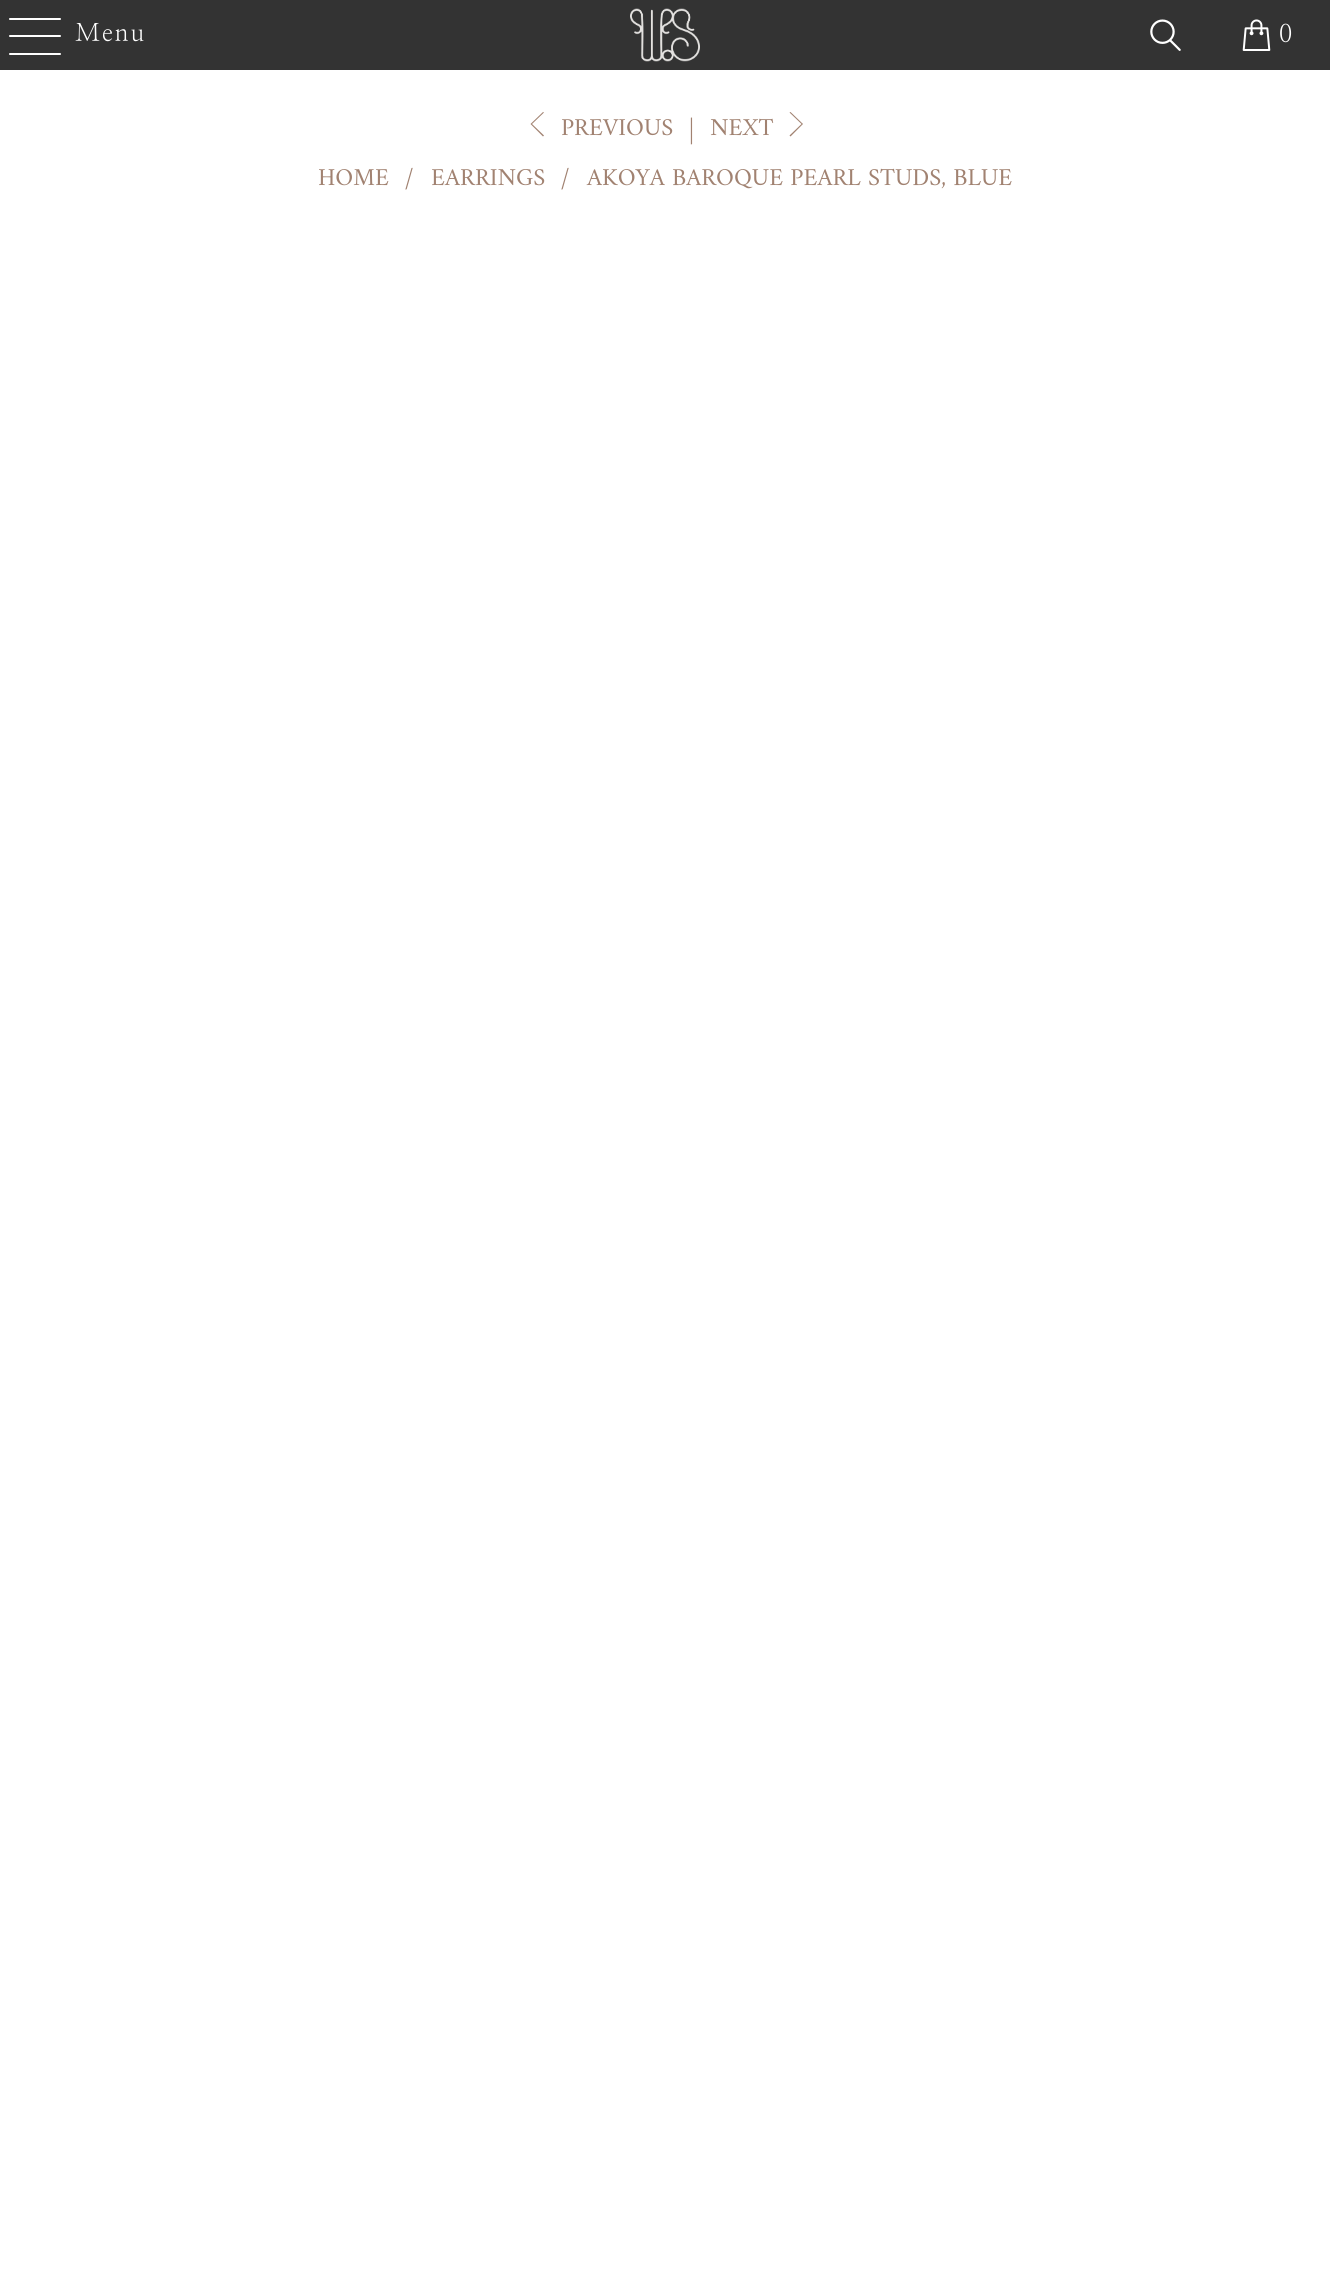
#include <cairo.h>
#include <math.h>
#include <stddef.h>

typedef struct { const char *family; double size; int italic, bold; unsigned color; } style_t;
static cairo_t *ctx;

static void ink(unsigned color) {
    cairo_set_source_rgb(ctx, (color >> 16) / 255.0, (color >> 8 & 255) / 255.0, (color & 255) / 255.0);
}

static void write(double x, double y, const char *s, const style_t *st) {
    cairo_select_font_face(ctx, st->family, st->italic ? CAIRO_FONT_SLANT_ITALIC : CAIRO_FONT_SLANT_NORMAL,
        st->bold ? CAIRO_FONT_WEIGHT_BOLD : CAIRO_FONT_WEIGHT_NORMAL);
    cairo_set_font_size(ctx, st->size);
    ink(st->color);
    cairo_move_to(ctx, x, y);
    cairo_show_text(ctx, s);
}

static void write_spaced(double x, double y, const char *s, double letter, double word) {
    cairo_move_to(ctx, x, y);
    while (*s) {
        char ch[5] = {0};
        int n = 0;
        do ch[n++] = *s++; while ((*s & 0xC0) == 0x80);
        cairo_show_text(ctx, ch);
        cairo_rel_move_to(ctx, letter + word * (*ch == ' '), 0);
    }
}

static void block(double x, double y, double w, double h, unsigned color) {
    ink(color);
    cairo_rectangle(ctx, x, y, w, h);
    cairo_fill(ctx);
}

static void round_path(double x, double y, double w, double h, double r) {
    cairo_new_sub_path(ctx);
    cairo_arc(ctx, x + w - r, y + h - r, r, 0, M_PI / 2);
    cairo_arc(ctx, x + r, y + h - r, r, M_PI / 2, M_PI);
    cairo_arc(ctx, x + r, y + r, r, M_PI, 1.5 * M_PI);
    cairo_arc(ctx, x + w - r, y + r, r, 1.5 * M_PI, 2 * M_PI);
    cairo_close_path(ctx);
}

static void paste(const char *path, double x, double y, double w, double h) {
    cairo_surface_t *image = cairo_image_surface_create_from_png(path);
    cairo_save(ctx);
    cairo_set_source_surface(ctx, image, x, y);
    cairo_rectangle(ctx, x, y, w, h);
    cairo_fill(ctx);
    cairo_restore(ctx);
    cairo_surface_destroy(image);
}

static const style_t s1 = {"Amiri", 24.5, 0, 0, 0xa18271};

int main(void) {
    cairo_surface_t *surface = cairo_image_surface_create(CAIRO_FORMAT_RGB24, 1330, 2275);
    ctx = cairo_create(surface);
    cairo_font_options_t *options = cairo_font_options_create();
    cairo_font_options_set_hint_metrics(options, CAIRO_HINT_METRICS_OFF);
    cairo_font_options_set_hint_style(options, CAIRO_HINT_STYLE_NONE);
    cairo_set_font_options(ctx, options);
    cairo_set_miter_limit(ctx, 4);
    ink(0xffffff);
    cairo_paint(ctx);
    block(0, 0, 1330, 70, 0x333333);
    ink(0xffffff);
    round_path(9, 18, 52, 2, 1);
    cairo_fill(ctx);
    round_path(9, 35, 52, 2, 1);
    cairo_fill(ctx);
    round_path(9, 53, 52, 2, 1);
    cairo_fill(ctx);
    cairo_select_font_face(ctx, "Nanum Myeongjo", CAIRO_FONT_SLANT_NORMAL, CAIRO_FONT_WEIGHT_NORMAL);
    cairo_set_font_size(ctx, 24.5);
    write_spaced(75, 41, "Menu", 2, 0);
    paste("pic1.png", 630, 8, 70, 54);
    paste("pic2.png", 1150, 19, 31, 32);
    paste("pic3.png", 1242, 19, 29, 32);
    write_spaced(1279, 42, "0", 2, 0);
    ink(0xa18271);
    cairo_new_path(ctx);
    cairo_move_to(ctx, 543, 136.5);
    cairo_line_to(ctx, 530.5, 124);
    cairo_line_to(ctx, 543, 112);
    cairo_line_to(ctx, 544, 112.5);
    cairo_line_to(ctx, 532, 124);
    cairo_line_to(ctx, 544, 135.5);
    cairo_close_path(ctx);
    cairo_fill(ctx);
    write(561, 135, "PREVIOUS", &s1);
    write(689, 135, "|", &s1);
    write(710, 135, "NEXT", &s1);
    cairo_new_path(ctx);
    cairo_move_to(ctx, 790.5, 136.5);
    cairo_line_to(ctx, 789.5, 135.5);
    cairo_line_to(ctx, 801.5, 124);
    cairo_line_to(ctx, 789.5, 112.5);
    cairo_line_to(ctx, 790.5, 112);
    cairo_line_to(ctx, 803, 124);
    cairo_close_path(ctx);
    cairo_fill(ctx);
    write(318, 185, "HOME", &s1);
    write(405, 185, "/", &s1);
    write(431, 185, "EARRINGS", &s1);
    write(561, 185, "/", &s1);
    write(587, 185, "AKOYA BAROQUE PEARL STUDS, BLUE", &s1);
    cairo_surface_write_to_png(surface, "screenshot.png");
    cairo_font_options_destroy(options);
    cairo_destroy(ctx);
    cairo_surface_destroy(surface);
    return 0;
}
